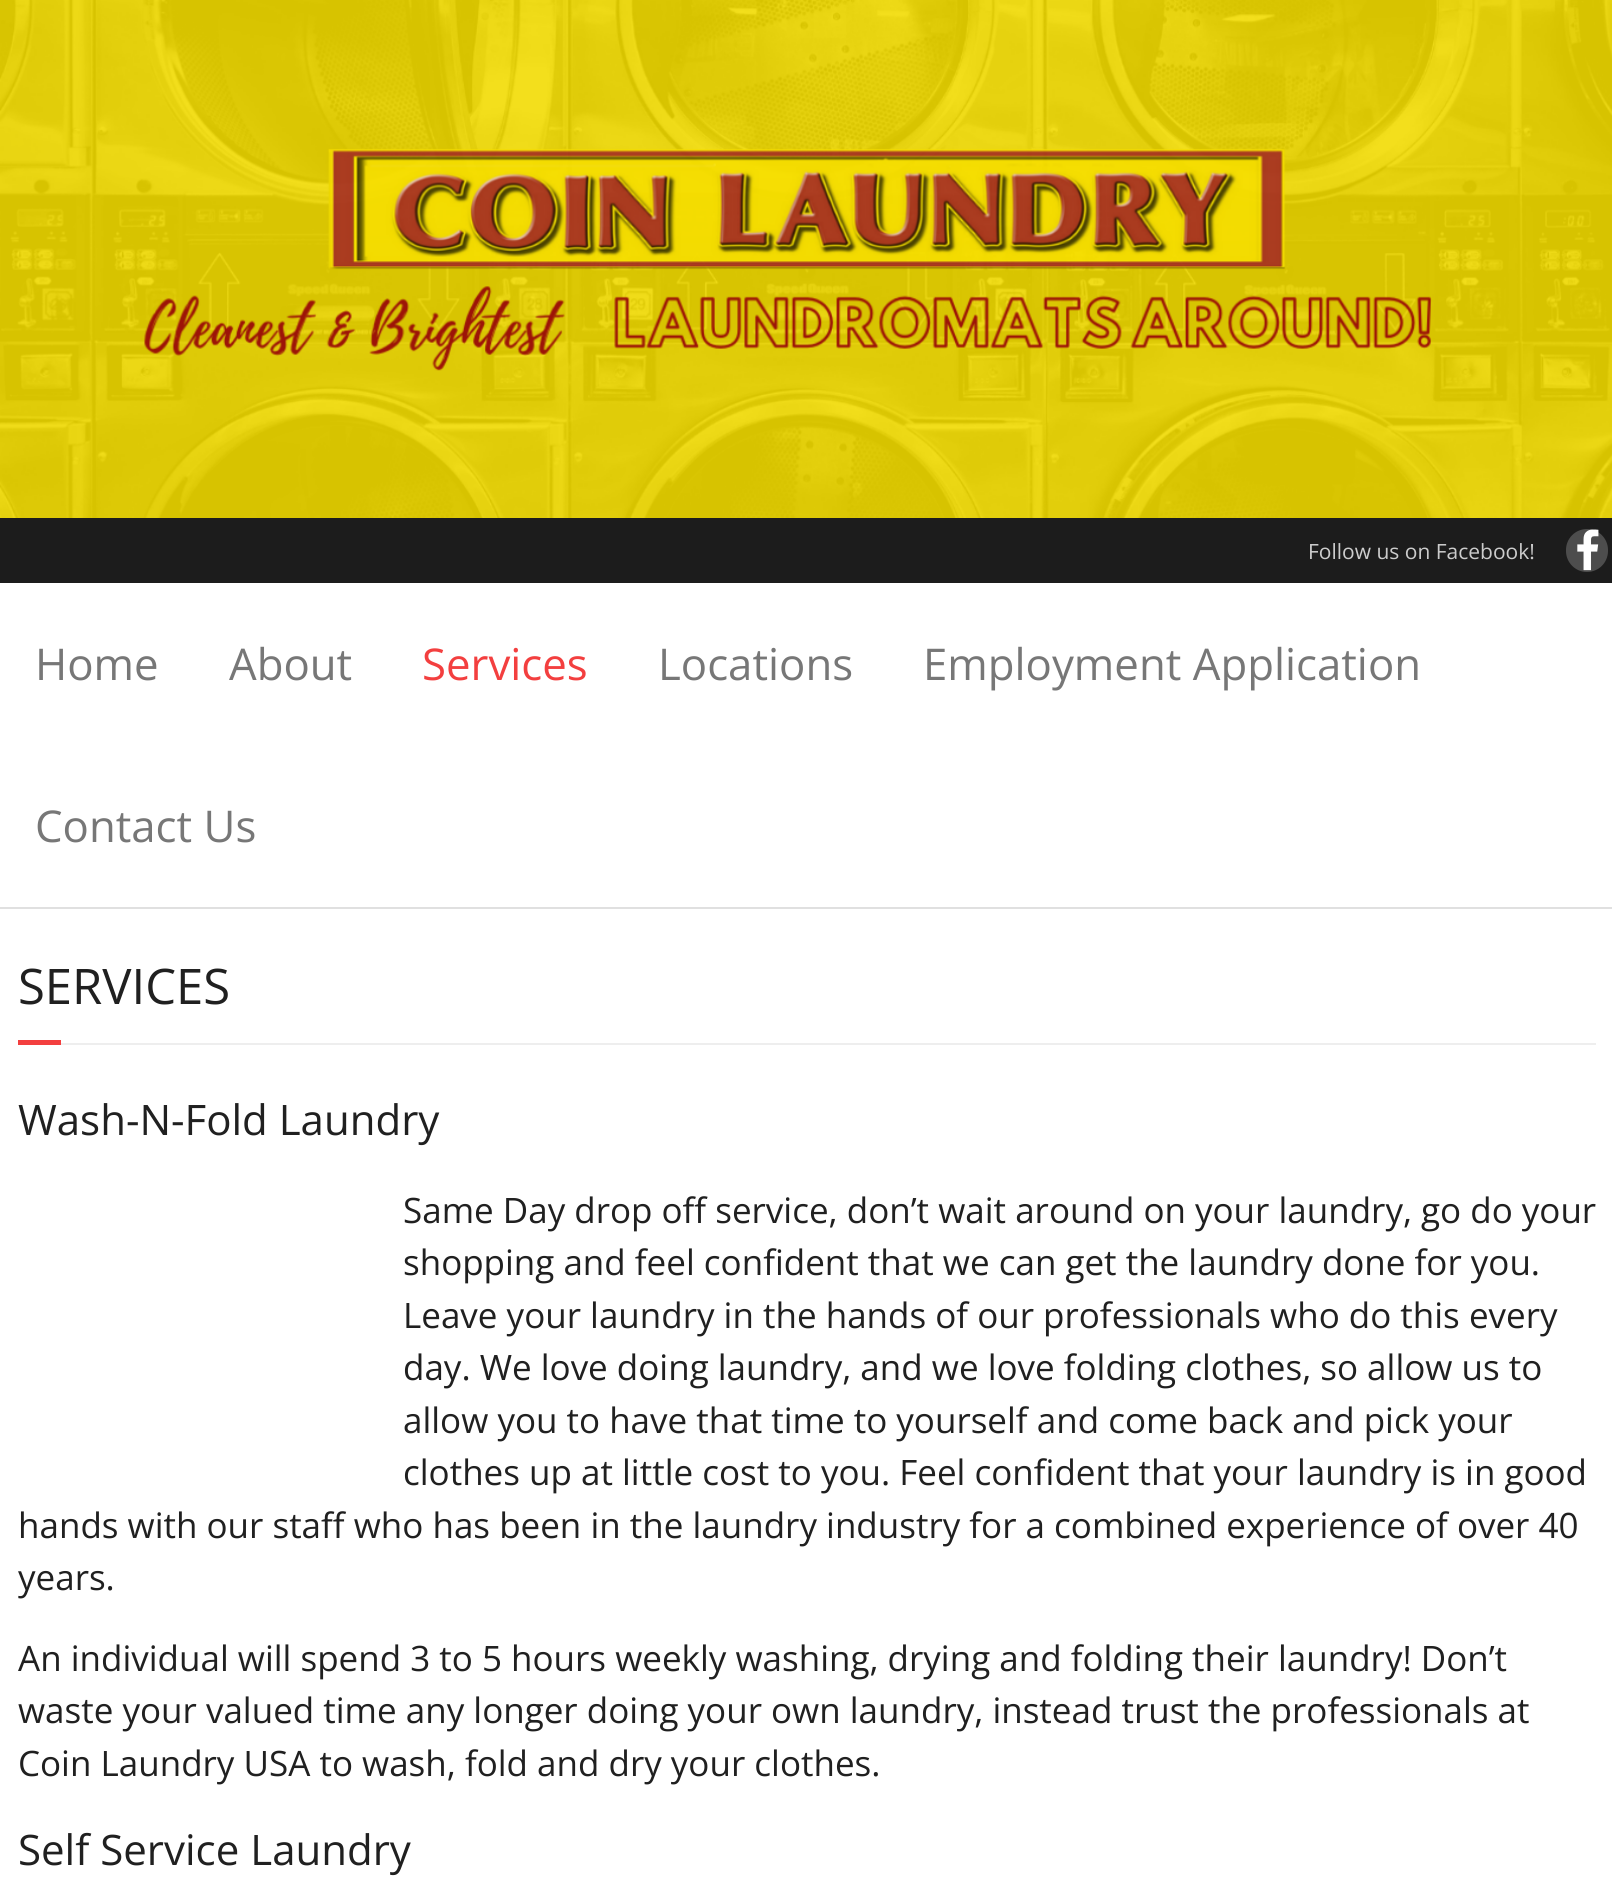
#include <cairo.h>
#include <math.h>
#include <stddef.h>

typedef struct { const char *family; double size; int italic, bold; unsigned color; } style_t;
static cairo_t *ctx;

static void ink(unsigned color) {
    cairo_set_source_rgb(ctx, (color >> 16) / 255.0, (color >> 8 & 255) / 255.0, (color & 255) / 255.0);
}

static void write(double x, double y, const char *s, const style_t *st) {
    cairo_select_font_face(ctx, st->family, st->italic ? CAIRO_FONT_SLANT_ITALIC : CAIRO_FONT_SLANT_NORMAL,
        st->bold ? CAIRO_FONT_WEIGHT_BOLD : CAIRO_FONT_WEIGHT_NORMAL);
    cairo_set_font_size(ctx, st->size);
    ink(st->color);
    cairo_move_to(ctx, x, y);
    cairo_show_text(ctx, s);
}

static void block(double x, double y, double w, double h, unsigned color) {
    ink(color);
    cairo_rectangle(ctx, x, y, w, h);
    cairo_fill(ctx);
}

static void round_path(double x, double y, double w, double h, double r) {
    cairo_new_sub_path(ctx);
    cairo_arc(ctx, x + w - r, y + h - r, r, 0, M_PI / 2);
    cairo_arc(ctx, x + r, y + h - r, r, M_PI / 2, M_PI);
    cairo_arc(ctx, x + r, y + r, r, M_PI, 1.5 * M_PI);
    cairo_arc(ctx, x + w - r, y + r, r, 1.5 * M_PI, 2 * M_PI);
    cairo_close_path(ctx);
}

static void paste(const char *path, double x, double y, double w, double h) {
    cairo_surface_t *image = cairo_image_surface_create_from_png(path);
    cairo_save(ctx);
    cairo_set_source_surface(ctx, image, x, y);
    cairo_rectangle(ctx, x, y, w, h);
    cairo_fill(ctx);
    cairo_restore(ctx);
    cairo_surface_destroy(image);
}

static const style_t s1 = {"Open Sans", 21, 0, 0, 0xcccccc};
static const style_t s2 = {"Open Sans", 43.75, 0, 0, 0x777777};
static const style_t s3 = {"Open Sans", 43.75, 0, 0, 0xf33f3f};
static const style_t s4 = {"Open Sans", 49, 0, 0, 0x202020};
static const style_t s5 = {"Open Sans", 42, 0, 0, 0x202020};
static const style_t s6 = {"Open Sans", 35, 0, 0, 0x202020};

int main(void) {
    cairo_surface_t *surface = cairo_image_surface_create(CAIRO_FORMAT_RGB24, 1612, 1890);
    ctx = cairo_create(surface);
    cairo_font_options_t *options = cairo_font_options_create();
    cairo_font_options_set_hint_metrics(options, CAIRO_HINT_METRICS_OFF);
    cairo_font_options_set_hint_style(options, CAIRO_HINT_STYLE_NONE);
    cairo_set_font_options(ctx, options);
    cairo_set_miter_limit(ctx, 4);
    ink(0xffffff);
    cairo_paint(ctx);
    paste("pic1.png", 0, 0, 1612, 518);
    block(0, 518, 1612, 65, 0x1c1c1c);
    write(1308, 559, "Follow us on Facebook!", &s1);
    ink(0x4d4d4d);
    round_path(1566, 529, 42, 43, 21);
    cairo_fill(ctx);
    paste("pic2.png", 1577, 529, 22, 42);
    block(0, 907, 1612, 2, 0xe0e0e0);
    write(35, 680, "Home", &s2);
    write(229, 680, "About", &s2);
    write(422, 680, "Services", &s3);
    write(658, 680, "Locations", &s2);
    write(923, 680, "Employment Application", &s2);
    write(35, 842, "Contact Us", &s2);
    write(18, 1004, "SERVICES", &s4);
    block(18, 1040, 43, 5, 0xf33f3f);
    block(61, 1043, 1535, 2, 0xeeeeee);
    write(18, 1135, "Wash-N-Fold Laundry", &s5);
    write(403, 1223, "Same Day drop off service, don’t wait around on your laundry, go do your", &s6);
    write(403, 1275, "shopping and feel confident that we can get the laundry done for you.", &s6);
    write(403, 1328, "Leave your laundry in the hands of our professionals who do this every", &s6);
    write(403, 1380, "day. We love doing laundry, and we love folding clothes, so allow us to", &s6);
    write(403, 1433, "allow you to have that time to yourself and come back and pick your", &s6);
    write(403, 1485, "clothes up at little cost to you. Feel confident that your laundry is in good", &s6);
    write(18, 1538, "hands with our staff who has been in the laundry industry for a combined experience of over 40", &s6);
    write(18, 1590, "years.", &s6);
    write(18, 1671, "An individual will spend 3 to 5 hours weekly washing, drying and folding their laundry! Don’t", &s6);
    write(18, 1723, "waste your valued time any longer doing your own laundry, instead trust the professionals at", &s6);
    write(18, 1776, "Coin Laundry USA to wash, fold and dry your clothes.", &s6);
    write(18, 1865, "Self Service Laundry", &s5);
    cairo_surface_write_to_png(surface, "screenshot.png");
    cairo_font_options_destroy(options);
    cairo_destroy(ctx);
    cairo_surface_destroy(surface);
    return 0;
}
